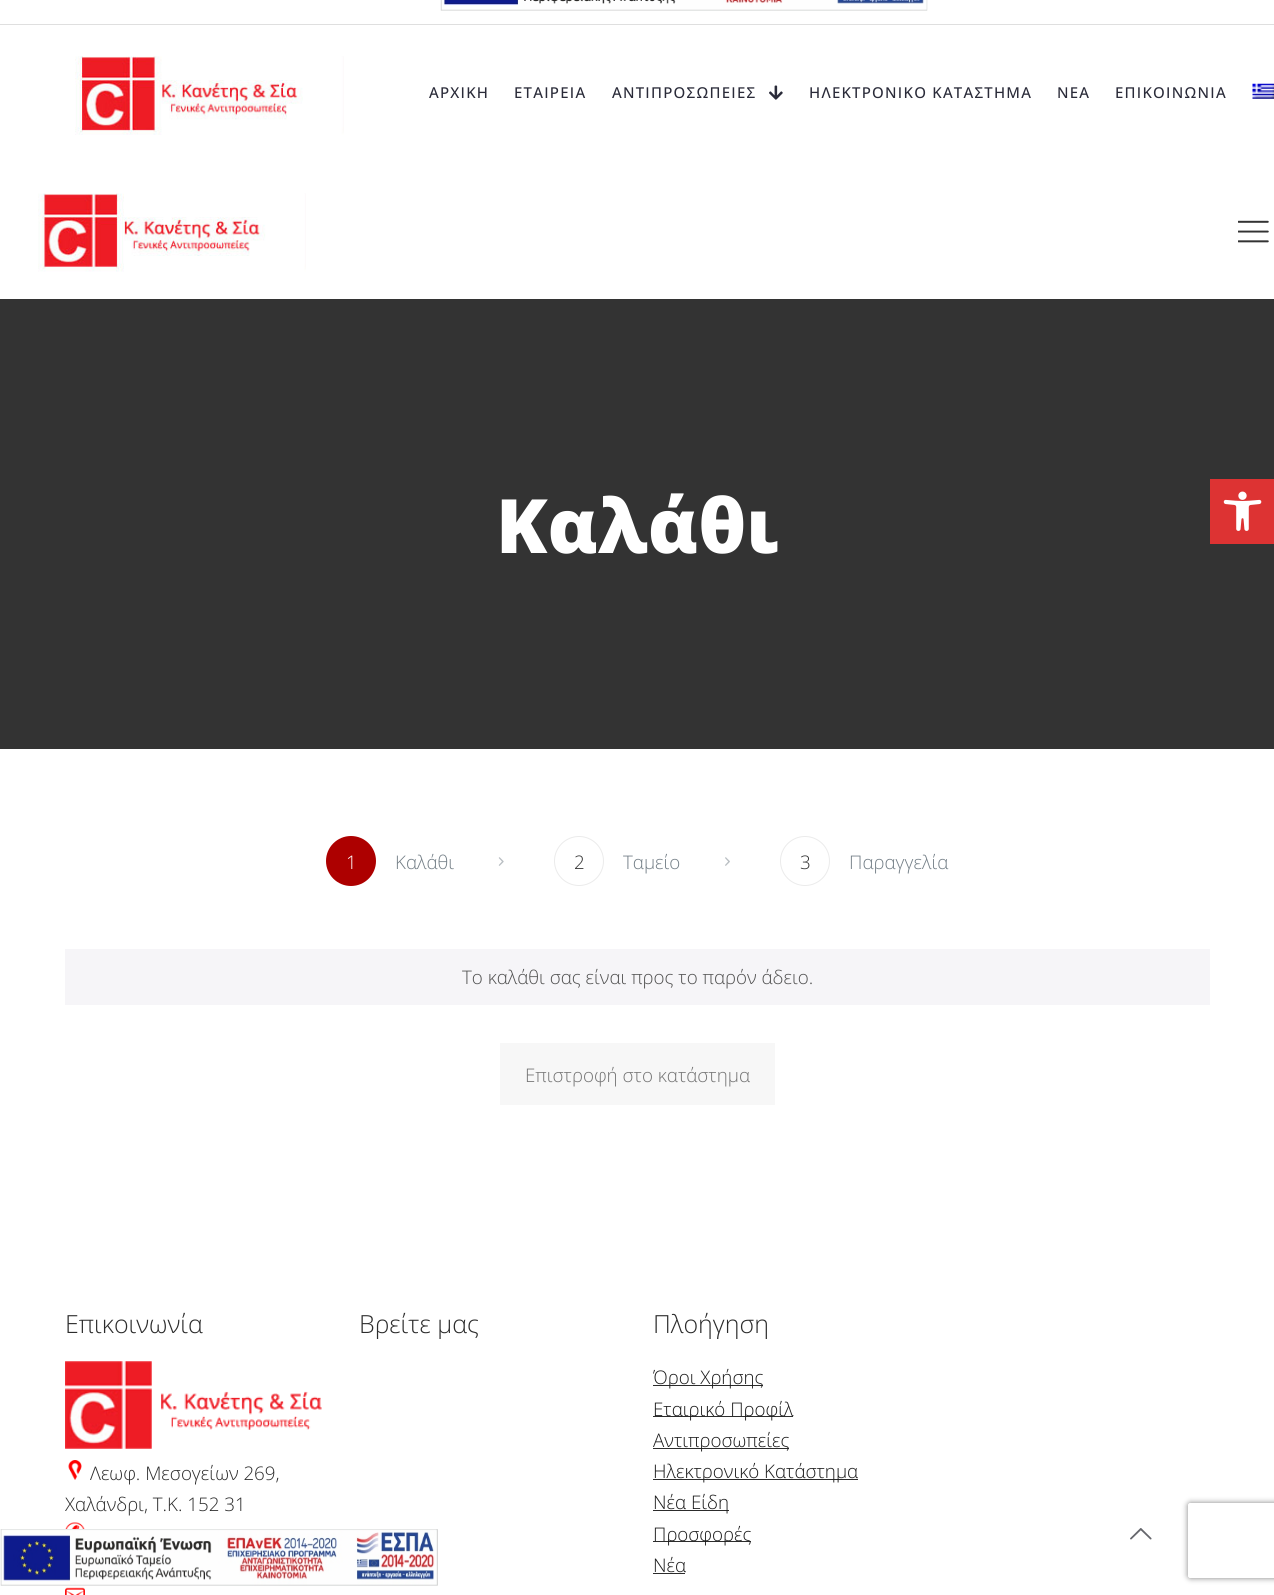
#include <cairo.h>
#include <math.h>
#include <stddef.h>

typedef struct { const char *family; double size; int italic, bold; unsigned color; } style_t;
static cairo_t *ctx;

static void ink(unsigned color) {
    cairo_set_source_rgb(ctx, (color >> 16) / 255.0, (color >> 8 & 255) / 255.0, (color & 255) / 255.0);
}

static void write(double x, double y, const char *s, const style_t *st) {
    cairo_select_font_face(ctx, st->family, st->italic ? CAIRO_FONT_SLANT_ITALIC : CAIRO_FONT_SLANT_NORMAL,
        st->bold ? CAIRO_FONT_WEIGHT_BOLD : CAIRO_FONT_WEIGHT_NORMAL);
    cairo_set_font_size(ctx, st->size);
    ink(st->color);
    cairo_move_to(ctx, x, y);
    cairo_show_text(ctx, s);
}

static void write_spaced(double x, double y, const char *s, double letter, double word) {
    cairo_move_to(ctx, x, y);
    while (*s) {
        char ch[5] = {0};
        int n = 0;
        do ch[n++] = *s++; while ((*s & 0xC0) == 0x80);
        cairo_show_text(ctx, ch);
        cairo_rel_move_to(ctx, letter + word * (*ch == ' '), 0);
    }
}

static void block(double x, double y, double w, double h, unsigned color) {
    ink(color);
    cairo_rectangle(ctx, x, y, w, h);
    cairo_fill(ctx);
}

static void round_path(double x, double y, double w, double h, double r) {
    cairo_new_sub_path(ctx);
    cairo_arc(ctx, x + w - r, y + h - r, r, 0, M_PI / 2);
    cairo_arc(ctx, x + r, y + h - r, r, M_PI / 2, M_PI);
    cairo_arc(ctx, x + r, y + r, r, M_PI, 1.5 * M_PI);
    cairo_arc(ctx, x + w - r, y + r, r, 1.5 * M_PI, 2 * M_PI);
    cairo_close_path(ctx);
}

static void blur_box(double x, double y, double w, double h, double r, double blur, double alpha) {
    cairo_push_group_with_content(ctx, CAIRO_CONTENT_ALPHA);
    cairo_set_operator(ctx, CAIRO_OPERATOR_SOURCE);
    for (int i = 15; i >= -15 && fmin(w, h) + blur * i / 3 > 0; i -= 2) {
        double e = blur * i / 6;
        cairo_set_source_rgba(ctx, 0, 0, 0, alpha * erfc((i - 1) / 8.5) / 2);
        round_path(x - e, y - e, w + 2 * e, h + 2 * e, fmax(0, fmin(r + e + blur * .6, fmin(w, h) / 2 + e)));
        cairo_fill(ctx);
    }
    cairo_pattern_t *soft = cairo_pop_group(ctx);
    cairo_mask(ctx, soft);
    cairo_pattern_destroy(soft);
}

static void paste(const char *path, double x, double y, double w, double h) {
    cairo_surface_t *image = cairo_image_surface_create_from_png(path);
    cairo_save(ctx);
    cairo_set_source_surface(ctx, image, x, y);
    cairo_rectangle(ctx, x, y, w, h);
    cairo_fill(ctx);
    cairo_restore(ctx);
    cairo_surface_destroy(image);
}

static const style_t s1 = {"Open Sans ExtraBold", 75, 0, 0, 0xffffff};
static const style_t s2 = {"Open Sans Light", 18.75, 0, 0, 0xffffff};
static const style_t s3 = {"Open Sans Light", 18.75, 0, 0, 0x737e86};
static const style_t s4 = {"Open Sans Light", 18.75, 0, 0, 0x333333};
static const style_t s5 = {"Open Sans Light", 18.75, 0, 0, 0x515151};
static const style_t s6 = {"Open Sans Light", 18.75, 0, 0, 0x747474};
static const style_t s7 = {"Open Sans Light", 25, 0, 0, 0x2c2c2c};
static const style_t s8 = {"Open Sans Light", 18.75, 0, 0, 0x2c2c2c};
static const style_t s9 = {"Open Sans Light", 18.75, 0, 0, 0x1b1b1b};

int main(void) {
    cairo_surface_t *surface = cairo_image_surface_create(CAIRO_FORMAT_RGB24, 1274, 1595);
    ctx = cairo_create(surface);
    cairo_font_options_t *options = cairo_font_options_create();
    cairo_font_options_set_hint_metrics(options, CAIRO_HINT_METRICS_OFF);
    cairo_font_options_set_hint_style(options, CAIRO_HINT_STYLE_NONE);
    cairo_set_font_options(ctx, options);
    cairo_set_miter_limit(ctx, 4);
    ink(0xffffff);
    cairo_paint(ctx);
    block(0, 24, 1274, 1, 0xdfdfdf);
    paste("pic1.png", 440, 0, 488, 11);
    paste("pic2.png", 75, 56, 269, 79);
    cairo_select_font_face(ctx, "Open Sans Medium", CAIRO_FONT_SLANT_NORMAL, CAIRO_FONT_WEIGHT_NORMAL);
    cairo_set_font_size(ctx, 15);
    ink(0x2a2b39);
    write_spaced(429, 98, "ΑΡΧΙΚΗ", 1.25, 0);
    write_spaced(514, 98, "ΕΤΑΙΡΕΙΑ", 1.25, 0);
    write_spaced(612, 98, "ΑΝΤΙΠΡΟΣΩΠΕΙΕΣ", 1.25, 0);
    paste("pic3.png", 769, 85, 14, 15);
    write_spaced(809, 98, "ΗΛΕΚΤΡΟΝΙΚΟ ΚΑΤΑΣΤΗΜΑ", 1.25, 0);
    write_spaced(1057, 98, "ΝΕΑ", 1.25, 0);
    write_spaced(1115, 98, "ΕΠΙΚΟΙΝΩΝΙΑ", 1.25, 0);
    paste("pic4.png", 1252, 83, 22, 16);
    paste("pic5.png", 38, 193, 268, 79);
    paste("pic6.png", 1238, 220, 31, 23);
    block(0, 299, 1274, 450, 0x333333);
    write(496, 553, "Καλάθι", &s1);
    ink(0xad0000);
    cairo_new_path(ctx);
    cairo_arc(ctx, 351, 861, 25, 0, 2 * M_PI);
    cairo_fill(ctx);
    write(346, 869, "1", &s2);
    write(395, 869, "Καλάθι", &s3);
    paste("pic7.png", 498, 857, 6, 9);
    cairo_arc(ctx, 579, 861, 24.5, 0, 2 * M_PI);
    ink(0xebebeb);
    cairo_set_line_width(ctx, 1);
    cairo_stroke(ctx);
    write(574, 869, "2", &s4);
    write(623, 869, "Ταμείο", &s3);
    paste("pic8.png", 725, 857, 5, 9);
    cairo_arc(ctx, 805, 861, 24.5, 0, 2 * M_PI);
    ink(0xebebeb);
    cairo_stroke(ctx);
    write(800, 869, "3", &s4);
    write(849, 869, "Παραγγελία", &s3);
    block(65, 949, 1145, 56, 0xf6f5f8);
    write(462, 984, "Το καλάθι σας είναι προς το παρόν άδειο.", &s5);
    block(500, 1043, 275, 62, 0xf7f7f7);
    write(525, 1082, "Επιστροφή στο κατάστημα", &s6);
    write(65, 1333, "Επικοινωνία", &s7);
    paste("pic9.png", 65, 1361, 257, 88);
    paste("pic10.png", 68, 1460, 14, 20);
    write(90, 1480, "Λεωφ. Μεσογείων 269,", &s8);
    write(65, 1511, "Χαλάνδρι, Τ.Κ. 152 31", &s8);
    paste("pic11.png", 65, 1522, 20, 7);
    paste("pic12.png", 65, 1587, 20, 8);
    write(359, 1333, "Βρείτε μας", &s7);
    write(653, 1333, "Πλοήγηση", &s7);
    block(653, 1385, 110, 1, 0x2c2c2c);
    write(653, 1384, "Όροι Χρήσης", &s9);
    block(653, 1416, 140, 1, 0x2c2c2c);
    write(653, 1416, "Εταιρικό Προφίλ", &s9);
    block(653, 1448, 136, 1, 0x2c2c2c);
    write(653, 1447, "Αντιπροσωπείες", &s9);
    block(653, 1479, 205, 1, 0x2c2c2c);
    write(653, 1478, "Ηλεκτρονικό Κατάστημα", &s9);
    block(653, 1510, 76, 1, 0x2c2c2c);
    write(653, 1509, "Νέα Είδη", &s9);
    block(653, 1541, 98, 1, 0x2c2c2c);
    write(653, 1541, "Προσφορές", &s9);
    write(653, 1572, "Νέα", &s9);
    block(653, 1573, 32, 1, 0x2c2c2c);
    paste("pic13.png", 0, 1529, 438, 57);
    block(1210, 479, 64, 65, 0xdd3333);
    paste("pic14.png", 1223, 491, 39, 40);
    paste("pic15.png", 1130, 1528, 22, 12);
    cairo_save(ctx);
    cairo_set_fill_rule(ctx, CAIRO_FILL_RULE_EVEN_ODD);
    cairo_new_path(ctx);
    cairo_move_to(ctx, 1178, 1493);
    cairo_line_to(ctx, 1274, 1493);
    cairo_line_to(ctx, 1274, 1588);
    cairo_line_to(ctx, 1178, 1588);
    cairo_close_path(ctx);
    cairo_move_to(ctx, 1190.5, 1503);
    cairo_line_to(ctx, 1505.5, 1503);
    cairo_curve_to(ctx, 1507, 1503, 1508, 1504, 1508, 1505.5);
    cairo_line_to(ctx, 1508, 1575.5);
    cairo_curve_to(ctx, 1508, 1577, 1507, 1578, 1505.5, 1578);
    cairo_line_to(ctx, 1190.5, 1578);
    cairo_curve_to(ctx, 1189, 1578, 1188, 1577, 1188, 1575.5);
    cairo_line_to(ctx, 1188, 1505.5);
    cairo_curve_to(ctx, 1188, 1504, 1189, 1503, 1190.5, 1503);
    cairo_close_path(ctx);
    cairo_clip(ctx);
    ink(0x808080);
    blur_box(1188, 1503, 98, 75, 2.5, 3, 1);
    cairo_restore(ctx);
    cairo_surface_write_to_png(surface, "screenshot.png");
    cairo_font_options_destroy(options);
    cairo_destroy(ctx);
    cairo_surface_destroy(surface);
    return 0;
}
